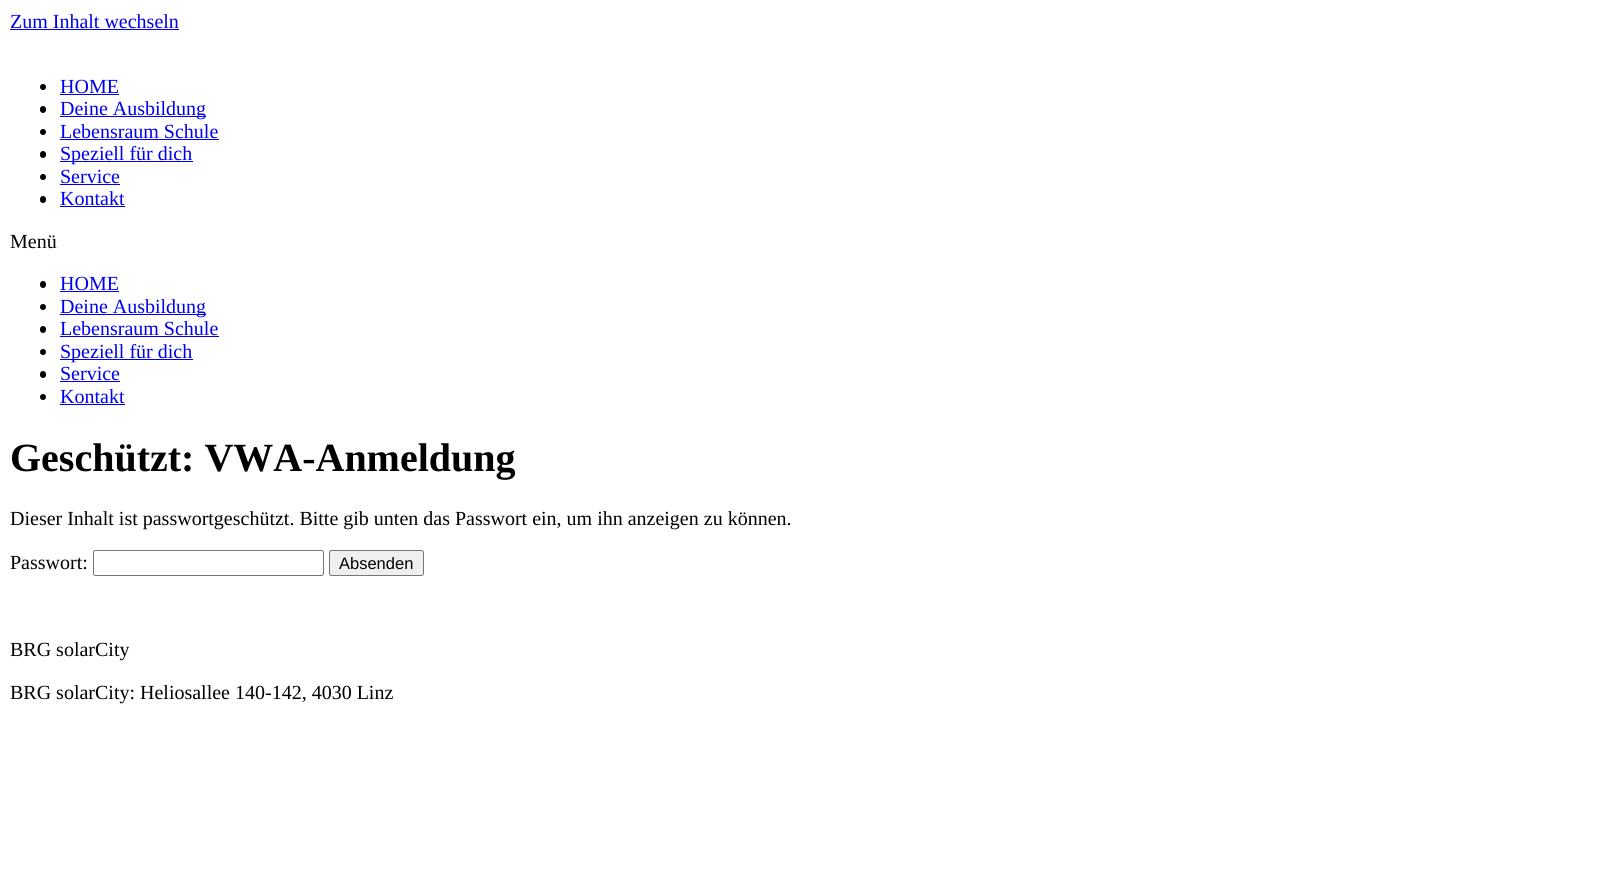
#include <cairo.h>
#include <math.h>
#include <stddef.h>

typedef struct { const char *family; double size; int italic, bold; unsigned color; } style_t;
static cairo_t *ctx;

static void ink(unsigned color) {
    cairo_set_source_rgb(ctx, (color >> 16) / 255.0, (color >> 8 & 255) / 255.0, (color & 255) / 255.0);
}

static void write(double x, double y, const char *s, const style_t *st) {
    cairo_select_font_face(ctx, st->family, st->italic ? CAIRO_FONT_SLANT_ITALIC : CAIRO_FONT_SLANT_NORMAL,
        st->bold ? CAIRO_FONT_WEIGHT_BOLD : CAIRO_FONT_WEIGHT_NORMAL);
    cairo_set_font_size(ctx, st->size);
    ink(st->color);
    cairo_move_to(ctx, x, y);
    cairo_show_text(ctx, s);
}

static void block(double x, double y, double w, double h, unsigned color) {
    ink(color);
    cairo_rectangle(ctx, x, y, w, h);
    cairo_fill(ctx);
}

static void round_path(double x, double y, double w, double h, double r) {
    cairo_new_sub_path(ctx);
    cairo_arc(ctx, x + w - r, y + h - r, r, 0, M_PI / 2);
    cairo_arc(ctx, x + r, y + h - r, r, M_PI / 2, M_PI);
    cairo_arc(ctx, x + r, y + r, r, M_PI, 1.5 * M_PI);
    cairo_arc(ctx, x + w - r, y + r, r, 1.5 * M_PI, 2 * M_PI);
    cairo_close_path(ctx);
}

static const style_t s1 = {"Liberation Serif", 20, 0, 0, 0x0000ee};
static const style_t s2 = {"Liberation Serif", 20, 0, 0, 0x000000};
static const style_t s3 = {"Liberation Serif", 40, 0, 1, 0x000000};
static const style_t s4 = {"Liberation Sans", 16.5, 0, 0, 0x000000};

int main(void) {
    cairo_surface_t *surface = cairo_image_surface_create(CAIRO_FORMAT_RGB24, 1613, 869);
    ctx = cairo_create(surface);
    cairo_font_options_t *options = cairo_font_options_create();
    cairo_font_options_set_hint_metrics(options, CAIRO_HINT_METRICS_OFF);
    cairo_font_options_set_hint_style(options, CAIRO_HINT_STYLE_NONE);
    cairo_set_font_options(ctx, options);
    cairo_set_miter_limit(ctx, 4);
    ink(0xffffff);
    cairo_paint(ctx);
    write(10, 28, "Zum Inhalt wechseln", &s1);
    block(10, 29, 169, 1, 0x0000ee);
    ink(0x000000);
    cairo_new_path(ctx);
    cairo_arc(ctx, 43, 87, 3, 0, 2 * M_PI);
    cairo_fill(ctx);
    write(60, 93, "HOME", &s1);
    block(60, 94, 59, 1, 0x0000ee);
    ink(0x000000);
    round_path(40, 106, 6, 7, 3);
    cairo_fill(ctx);
    block(60, 116, 146, 1, 0x0000ee);
    write(60, 115, "Deine Ausbildung", &s1);
    ink(0x000000);
    cairo_new_path(ctx);
    cairo_arc(ctx, 43, 132, 3, 0, 2 * M_PI);
    cairo_fill(ctx);
    write(60, 138, "Lebensraum Schule", &s1);
    block(60, 139, 159, 1, 0x0000ee);
    ink(0x000000);
    round_path(40, 151, 6, 7, 3);
    cairo_fill(ctx);
    block(60, 161, 133, 1, 0x0000ee);
    write(60, 160, "Speziell für dich", &s1);
    ink(0x000000);
    cairo_new_path(ctx);
    cairo_arc(ctx, 43, 177, 3, 0, 2 * M_PI);
    cairo_fill(ctx);
    write(60, 183, "Service", &s1);
    block(60, 184, 60, 1, 0x0000ee);
    ink(0x000000);
    round_path(40, 196, 6, 7, 3);
    cairo_fill(ctx);
    write(60, 205, "Kontakt", &s1);
    block(60, 206, 65, 1, 0x0000ee);
    write(10, 248, "Menü", &s2);
    round_path(40, 281, 6, 7, 3);
    cairo_fill(ctx);
    write(60, 290, "HOME", &s1);
    block(60, 291, 59, 1, 0x0000ee);
    ink(0x000000);
    cairo_new_path(ctx);
    cairo_arc(ctx, 43, 307, 3, 0, 2 * M_PI);
    cairo_fill(ctx);
    block(60, 314, 146, 1, 0x0000ee);
    write(60, 313, "Deine Ausbildung", &s1);
    ink(0x000000);
    round_path(40, 326, 6, 7, 3);
    cairo_fill(ctx);
    write(60, 335, "Lebensraum Schule", &s1);
    block(60, 336, 159, 1, 0x0000ee);
    ink(0x000000);
    cairo_new_path(ctx);
    cairo_arc(ctx, 43, 352, 3, 0, 2 * M_PI);
    cairo_fill(ctx);
    block(60, 359, 133, 1, 0x0000ee);
    write(60, 358, "Speziell für dich", &s1);
    ink(0x000000);
    round_path(40, 371, 6, 7, 3);
    cairo_fill(ctx);
    write(60, 380, "Service", &s1);
    block(60, 381, 60, 1, 0x0000ee);
    ink(0x000000);
    cairo_new_path(ctx);
    cairo_arc(ctx, 43, 397, 3, 0, 2 * M_PI);
    cairo_fill(ctx);
    write(60, 403, "Kontakt", &s1);
    block(60, 404, 65, 1, 0x0000ee);
    write(10, 471, "Geschützt: VWA-Anmeldung", &s3);
    write(10, 525, "Dieser Inhalt ist passwortgeschützt. Bitte gib unten das Passwort ein, um ihn anzeigen zu können.", &s2);
    write(10, 569, "Passwort:", &s2);
    round_path(93.5, 550.5, 230, 25, 2);
    ink(0x767676);
    cairo_set_line_width(ctx, 1);
    cairo_stroke(ctx);
    ink(0xefefef);
    round_path(329.5, 550.5, 94, 25, 2);
    cairo_fill_preserve(ctx);
    ink(0x767676);
    cairo_stroke(ctx);
    write(339, 569, "Absenden", &s4);
    write(10, 656, "BRG solarCity", &s2);
    write(10, 699, "BRG solarCity: Heliosallee 140-142, 4030 Linz", &s2);
    cairo_surface_write_to_png(surface, "screenshot.png");
    cairo_font_options_destroy(options);
    cairo_destroy(ctx);
    cairo_surface_destroy(surface);
    return 0;
}
